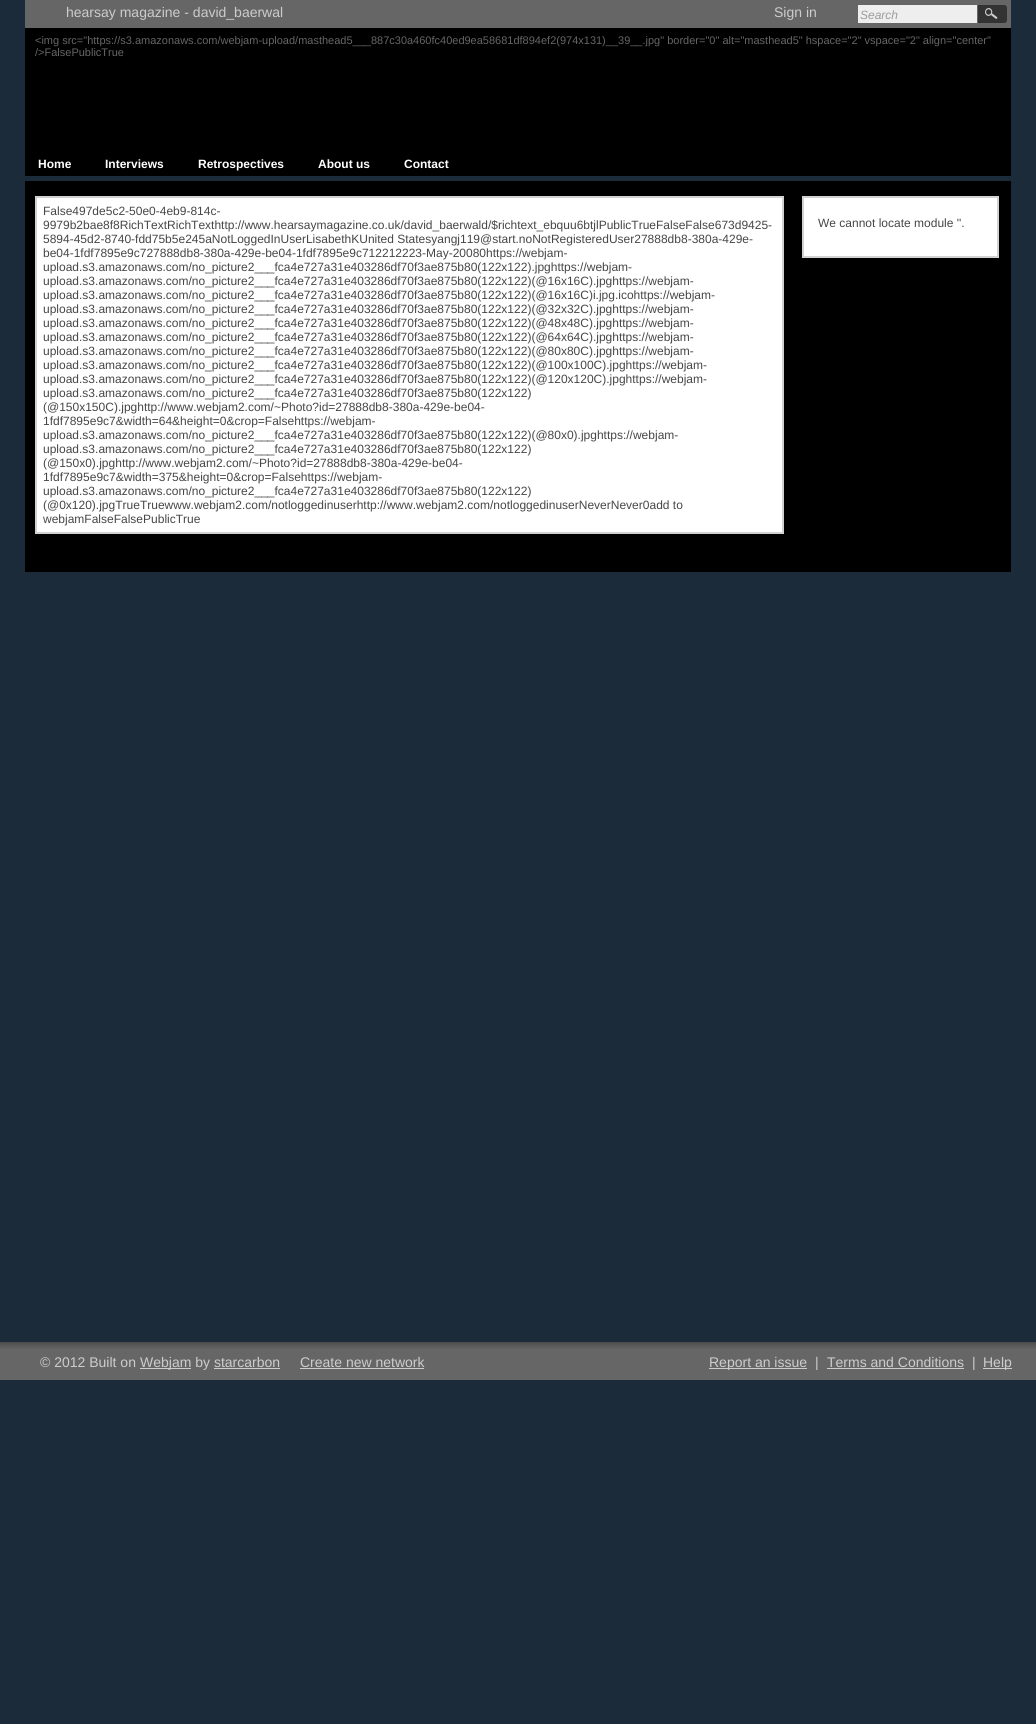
#include <cairo.h>
#include <math.h>
#include <stddef.h>

typedef struct { const char *family; double size; int italic, bold; unsigned color; } style_t;
static cairo_t *ctx;

static void ink(unsigned color) {
    cairo_set_source_rgb(ctx, (color >> 16) / 255.0, (color >> 8 & 255) / 255.0, (color & 255) / 255.0);
}

static void write(double x, double y, const char *s, const style_t *st) {
    cairo_select_font_face(ctx, st->family, st->italic ? CAIRO_FONT_SLANT_ITALIC : CAIRO_FONT_SLANT_NORMAL,
        st->bold ? CAIRO_FONT_WEIGHT_BOLD : CAIRO_FONT_WEIGHT_NORMAL);
    cairo_set_font_size(ctx, st->size);
    ink(st->color);
    cairo_move_to(ctx, x, y);
    cairo_show_text(ctx, s);
}

static void block(double x, double y, double w, double h, unsigned color) {
    ink(color);
    cairo_rectangle(ctx, x, y, w, h);
    cairo_fill(ctx);
}

static void paste(const char *path, double x, double y, double w, double h) {
    cairo_surface_t *image = cairo_image_surface_create_from_png(path);
    cairo_save(ctx);
    cairo_set_source_surface(ctx, image, x, y);
    cairo_rectangle(ctx, x, y, w, h);
    cairo_fill(ctx);
    cairo_restore(ctx);
    cairo_surface_destroy(image);
}

static const style_t s1 = {"Liberation Sans", 14, 0, 0, 0xcccccc};
static const style_t s2 = {"Liberation Sans", 12, 1, 0, 0x9c9c9c};
static const style_t s3 = {"Liberation Sans", 11, 0, 0, 0x666666};
static const style_t s4 = {"Liberation Sans", 12, 0, 1, 0xffffff};
static const style_t s5 = {"Liberation Sans", 12, 0, 0, 0x464646};

int main(void) {
    cairo_surface_t *surface = cairo_image_surface_create(CAIRO_FORMAT_RGB24, 1036, 1724);
    ctx = cairo_create(surface);
    cairo_font_options_t *options = cairo_font_options_create();
    cairo_font_options_set_hint_metrics(options, CAIRO_HINT_METRICS_OFF);
    cairo_font_options_set_hint_style(options, CAIRO_HINT_STYLE_NONE);
    cairo_set_font_options(ctx, options);
    cairo_set_miter_limit(ctx, 4);
    ink(0x1c2b3a);
    cairo_paint(ctx);
    block(25, 0, 986, 28, 0x666666);
    write(66, 17, "hearsay magazine - david_baerwal", &s1);
    write(774, 17, "Sign in", &s1);
    block(858, 5, 119, 18, 0xeeeeee);
    write(860, 19, "Search", &s2);
    paste("pic1.png", 978, 5, 29, 18);
    block(25, 28, 986, 544, 0x000000);
    block(25, 176, 986, 5, 0x1c2b3a);
    write(35, 44, "<img src=\"https://s3.amazonaws.com/webjam-upload/masthead5___887c30a460fc40ed9ea58681df894ef2(974x131)__39__.jpg\" border=\"0\" alt=\"masthead5\" hspace=\"2\" vspace=\"2\" align=\"center\"", &s3);
    write(35, 56, "/>FalsePublicTrue", &s3);
    write(38, 168, "Home", &s4);
    write(105, 168, "Interviews", &s4);
    write(198, 168, "Retrospectives", &s4);
    write(318, 168, "About us", &s4);
    write(404, 168, "Contact", &s4);
    cairo_rectangle(ctx, 36, 197, 747, 336);
    cairo_fill_preserve(ctx);
    ink(0xd2d2d2);
    cairo_stroke(ctx);
    write(43, 215, "False497de5c2-50e0-4eb9-814c-", &s5);
    write(43, 229, "9979b2bae8f8RichTextRichTexthttp://www.hearsaymagazine.co.uk/david_baerwald/$richtext_ebquu6btjlPublicTrueFalseFalse673d9425-", &s5);
    write(43, 243, "5894-45d2-8740-fdd75b5e245aNotLoggedInUserLisabethKUnited Statesyangj119@start.noNotRegisteredUser27888db8-380a-429e-", &s5);
    write(43, 257, "be04-1fdf7895e9c727888db8-380a-429e-be04-1fdf7895e9c712212223-May-20080https://webjam-", &s5);
    write(43, 271, "upload.s3.amazonaws.com/no_picture2___fca4e727a31e403286df70f3ae875b80(122x122).jpghttps://webjam-", &s5);
    write(43, 285, "upload.s3.amazonaws.com/no_picture2___fca4e727a31e403286df70f3ae875b80(122x122)(@16x16C).jpghttps://webjam-", &s5);
    write(43, 299, "upload.s3.amazonaws.com/no_picture2___fca4e727a31e403286df70f3ae875b80(122x122)(@16x16C)i.jpg.icohttps://webjam-", &s5);
    write(43, 313, "upload.s3.amazonaws.com/no_picture2___fca4e727a31e403286df70f3ae875b80(122x122)(@32x32C).jpghttps://webjam-", &s5);
    write(43, 327, "upload.s3.amazonaws.com/no_picture2___fca4e727a31e403286df70f3ae875b80(122x122)(@48x48C).jpghttps://webjam-", &s5);
    write(43, 341, "upload.s3.amazonaws.com/no_picture2___fca4e727a31e403286df70f3ae875b80(122x122)(@64x64C).jpghttps://webjam-", &s5);
    write(43, 355, "upload.s3.amazonaws.com/no_picture2___fca4e727a31e403286df70f3ae875b80(122x122)(@80x80C).jpghttps://webjam-", &s5);
    write(43, 369, "upload.s3.amazonaws.com/no_picture2___fca4e727a31e403286df70f3ae875b80(122x122)(@100x100C).jpghttps://webjam-", &s5);
    write(43, 383, "upload.s3.amazonaws.com/no_picture2___fca4e727a31e403286df70f3ae875b80(122x122)(@120x120C).jpghttps://webjam-", &s5);
    write(43, 397, "upload.s3.amazonaws.com/no_picture2___fca4e727a31e403286df70f3ae875b80(122x122)", &s5);
    write(43, 411, "(@150x150C).jpghttp://www.webjam2.com/~Photo?id=27888db8-380a-429e-be04-", &s5);
    write(43, 425, "1fdf7895e9c7&width=64&height=0&crop=Falsehttps://webjam-", &s5);
    write(43, 439, "upload.s3.amazonaws.com/no_picture2___fca4e727a31e403286df70f3ae875b80(122x122)(@80x0).jpghttps://webjam-", &s5);
    write(43, 453, "upload.s3.amazonaws.com/no_picture2___fca4e727a31e403286df70f3ae875b80(122x122)", &s5);
    write(43, 467, "(@150x0).jpghttp://www.webjam2.com/~Photo?id=27888db8-380a-429e-be04-", &s5);
    write(43, 481, "1fdf7895e9c7&width=375&height=0&crop=Falsehttps://webjam-", &s5);
    write(43, 495, "upload.s3.amazonaws.com/no_picture2___fca4e727a31e403286df70f3ae875b80(122x122)", &s5);
    write(43, 509, "(@0x120).jpgTrueTruewww.webjam2.com/notloggedinuserhttp://www.webjam2.com/notloggedinuserNeverNever0add to", &s5);
    write(43, 523, "webjamFalseFalsePublicTrue", &s5);
    ink(0xffffff);
    cairo_rectangle(ctx, 803, 197, 195, 60);
    cairo_fill_preserve(ctx);
    ink(0xd2d2d2);
    cairo_stroke(ctx);
    write(818, 227, "We cannot locate module ''.", &s5);
    block(0, 1349, 1036, 31, 0x666666);
    paste("pic2.png", 0, 1342, 1036, 7);
    write(40, 1367, "© 2012 Built on", &s1);
    block(140, 1368, 51, 1, 0xcccccc);
    write(140, 1367, "Webjam by starcarbon", &s1);
    write(300, 1367, "Create new network", &s1);
    block(300, 1368, 124, 1, 0xcccccc);
    block(214, 1368, 66, 1, 0xcccccc);
    block(709, 1368, 98, 1, 0xcccccc);
    write(709, 1367, "Report an issue", &s1);
    write(815, 1367, "|", &s1);
    write(827, 1367, "Terms and Conditions", &s1);
    block(827, 1368, 137, 1, 0xcccccc);
    write(972, 1367, "|", &s1);
    block(983, 1368, 29, 1, 0xcccccc);
    write(983, 1367, "Help", &s1);
    cairo_surface_write_to_png(surface, "screenshot.png");
    cairo_font_options_destroy(options);
    cairo_destroy(ctx);
    cairo_surface_destroy(surface);
    return 0;
}
